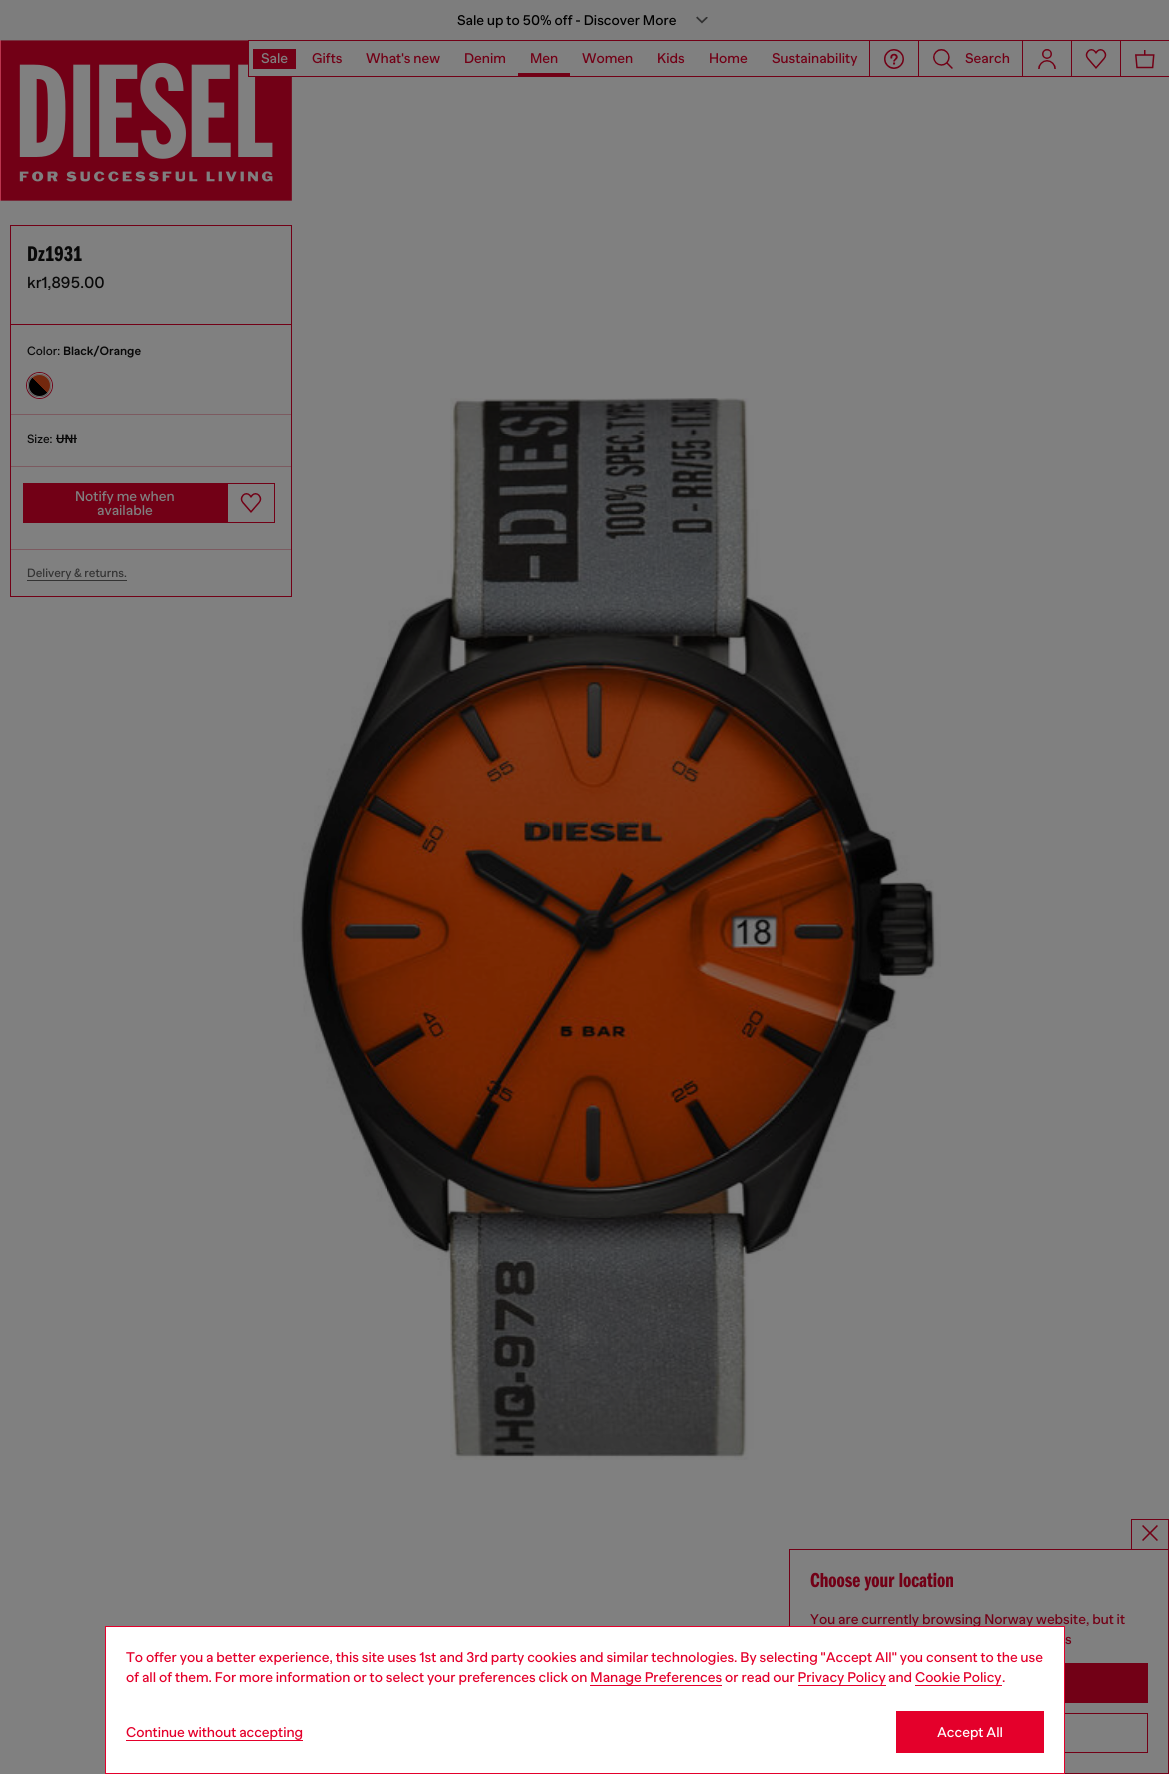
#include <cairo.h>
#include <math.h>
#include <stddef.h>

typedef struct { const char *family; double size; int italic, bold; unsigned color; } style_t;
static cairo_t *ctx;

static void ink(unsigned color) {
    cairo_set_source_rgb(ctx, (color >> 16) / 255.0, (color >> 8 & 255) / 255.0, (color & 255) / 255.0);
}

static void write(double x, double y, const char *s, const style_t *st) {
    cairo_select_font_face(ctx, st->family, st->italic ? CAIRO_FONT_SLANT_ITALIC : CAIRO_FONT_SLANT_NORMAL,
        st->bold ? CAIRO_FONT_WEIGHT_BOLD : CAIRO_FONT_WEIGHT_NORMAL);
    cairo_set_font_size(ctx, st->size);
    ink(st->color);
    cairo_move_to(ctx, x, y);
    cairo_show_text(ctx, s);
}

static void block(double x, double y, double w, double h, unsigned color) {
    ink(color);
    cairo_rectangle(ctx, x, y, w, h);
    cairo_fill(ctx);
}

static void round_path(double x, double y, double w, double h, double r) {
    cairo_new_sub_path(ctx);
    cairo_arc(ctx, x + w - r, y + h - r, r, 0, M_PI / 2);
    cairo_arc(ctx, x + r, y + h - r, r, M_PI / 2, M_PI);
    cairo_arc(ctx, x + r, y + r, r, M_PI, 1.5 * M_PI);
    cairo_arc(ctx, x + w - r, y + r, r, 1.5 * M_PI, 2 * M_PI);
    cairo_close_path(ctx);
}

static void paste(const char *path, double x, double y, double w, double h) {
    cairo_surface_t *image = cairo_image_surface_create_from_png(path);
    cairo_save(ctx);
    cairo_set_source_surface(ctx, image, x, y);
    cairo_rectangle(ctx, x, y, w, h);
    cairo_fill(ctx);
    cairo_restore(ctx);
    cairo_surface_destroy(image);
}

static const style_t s1 = {"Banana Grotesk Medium", 14, 0, 0, 0x000000};
static const style_t s2 = {"Banana Grotesk Medium", 14, 0, 0, 0x808080};
static const style_t s3 = {"Banana Grotesk Medium", 14, 0, 0, 0x720016};
static const style_t s4 = {"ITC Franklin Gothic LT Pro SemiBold", 22, 0, 0, 0x090909};
static const style_t s5 = {"Banana Grotesk Medium", 16, 0, 0, 0x090909};
static const style_t s6 = {"Banana Grotesk Medium", 12, 0, 0, 0x090909};
static const style_t s7 = {"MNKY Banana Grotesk", 12, 0, 1, 0x090909};
static const style_t s8 = {"Banana Grotesk Medium", 12, 0, 0, 0x333333};
static const style_t s9 = {"ITC Franklin Gothic LT Pro SemiBold", 21, 0, 0, 0x720016};
static const style_t s10 = {"Banana Grotesk Medium", 14, 0, 0, 0xe4002b};
static const style_t s11 = {"Banana Grotesk Medium", 14, 0, 0, 0xffffff};

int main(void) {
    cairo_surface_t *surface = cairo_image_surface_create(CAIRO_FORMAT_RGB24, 1169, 1774);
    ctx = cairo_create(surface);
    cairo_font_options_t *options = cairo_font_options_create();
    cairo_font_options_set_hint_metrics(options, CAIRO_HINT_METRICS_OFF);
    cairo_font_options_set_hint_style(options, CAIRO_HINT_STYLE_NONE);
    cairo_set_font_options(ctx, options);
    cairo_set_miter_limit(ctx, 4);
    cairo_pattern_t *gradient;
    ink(0x808080);
    cairo_paint(ctx);
    block(0, 0, 1169, 40, 0x7d7d7d);
    write(457, 25, "Sale up to 50% off - Discover More", &s1);
    paste("pic1.png", 696, 16, 12, 8);
    paste("pic2.png", 0, 40, 292, 161);
    block(249, 41, 43, 35, 0x808080);
    block(248, 40, 1, 37, 0x720016);
    block(249, 40, 620, 1, 0x720016);
    block(249, 76, 620, 1, 0x720016);
    block(253, 49, 43, 20, 0x720016);
    write(261, 63, "Sale", &s2);
    write(312, 63, "Gifts", &s3);
    write(366, 63, "What's new", &s3);
    write(464, 63, "Denim", &s3);
    write(530, 63, "Men", &s3);
    block(518, 73, 52, 3, 0x720016);
    write(582, 63, "Women", &s3);
    write(657, 63, "Kids", &s3);
    write(709, 63, "Home", &s3);
    write(772, 63, "Sustainability", &s3);
    block(869, 40, 1, 37, 0x720016);
    block(870, 40, 48, 1, 0x720016);
    block(870, 76, 48, 1, 0x720016);
    paste("pic3.png", 884, 49, 20, 20);
    block(918, 40, 1, 37, 0x720016);
    block(919, 40, 103, 1, 0x720016);
    block(919, 76, 103, 1, 0x720016);
    paste("pic4.png", 933, 49, 20, 20);
    write(965, 63, "Search", &s3);
    block(1022, 40, 1, 37, 0x720016);
    block(1023, 40, 48, 1, 0x720016);
    block(1023, 76, 48, 1, 0x720016);
    paste("pic5.png", 1038, 49, 18, 20);
    block(1071, 40, 1, 37, 0x720016);
    block(1072, 40, 48, 1, 0x720016);
    block(1072, 76, 48, 1, 0x720016);
    paste("pic6.png", 1085, 49, 22, 20);
    block(1120, 40, 1, 37, 0x720016);
    block(1121, 40, 48, 1, 0x720016);
    block(1121, 76, 48, 1, 0x720016);
    paste("pic7.png", 1135, 50, 20, 19);
    cairo_rectangle(ctx, 10.5, 225.5, 281, 371);
    cairo_set_line_width(ctx, 1);
    cairo_stroke(ctx);
    write(27, 261, "Dz1931", &s4);
    write(27, 288, "kr1,895.00", &s5);
    block(11, 324, 280, 1, 0x720016);
    block(11, 414, 280, 1, 0x7c5a60);
    write(27, 355, "Color:", &s6);
    write(63, 355, "Black/Orange", &s7);
    cairo_new_path(ctx);
    cairo_arc(ctx, 39.5, 385.5, 13, 0, 2 * M_PI);
    ink(0x720016);
    cairo_stroke(ctx);
    cairo_save(ctx);
    round_path(27, 373, 25, 25, 12.5);
    cairo_clip(ctx);
    gradient = cairo_pattern_create_linear(28, 397, 51, 374);
    cairo_pattern_add_color_stop_rgba(gradient, 0, 0, 0, 0, 1);
    cairo_pattern_add_color_stop_rgba(gradient, 0.5, 0, 0, 0, 1);
    cairo_pattern_add_color_stop_rgba(gradient, 0.5, 0.451, 0.157, 0.055, 1);
    cairo_pattern_add_color_stop_rgba(gradient, 1, 0.451, 0.157, 0.055, 1);
    cairo_set_source(ctx, gradient);
    cairo_pattern_destroy(gradient);
    cairo_rectangle(ctx, 28, 374, 23, 23);
    cairo_fill(ctx);
    cairo_restore(ctx);
    cairo_arc(ctx, 39.5, 385.5, 11, 0, 2 * M_PI);
    ink(0x707070);
    cairo_stroke(ctx);
    cairo_arc(ctx, 39.5, 385.5, 12, 0, 2 * M_PI);
    ink(0x808080);
    cairo_stroke(ctx);
    write(27, 443, "Size:", &s6);
    write(56, 443, "UNI", &s7);
    block(56, 438, 21, 1, 0x090909);
    block(11, 466, 280, 1, 0x7c5a60);
    block(23, 483, 204, 40, 0x720016);
    write(75, 501, "Notify me when", &s2);
    write(97, 515, "available", &s2);
    cairo_rectangle(ctx, 227.5, 483.5, 47, 39);
    ink(0x720016);
    cairo_stroke(ctx);
    paste("pic8.png", 240, 493, 22, 20);
    block(11, 549, 280, 1, 0x7c5a60);
    write(27, 577, "Delivery & returns.", &s8);
    block(27, 580, 100, 1, 0x333333);
    paste("pic9.png", 293, 398, 648, 1062);
    block(1131, 1519, 38, 1, 0x720016);
    block(1168, 1519, 1, 30, 0x720016);
    block(1131, 1519, 1, 30, 0x720016);
    paste("pic10.png", 1142, 1525, 16, 16);
    cairo_rectangle(ctx, 789.5, 1549.5, 379, 224);
    cairo_stroke(ctx);
    write(810, 1587, "Choose your location", &s9);
    write(810, 1624, "You are currently browsing Norway website, but it", &s3);
    write(1065, 1644, "s", &s3);
    block(1065, 1663, 83, 40, 0x720016);
    cairo_rectangle(ctx, 810.5, 1713.5, 337, 39);
    cairo_stroke(ctx);
    cairo_rectangle(ctx, 105.5, 1626.5, 959, 147);
    ink(0xe4002b);
    cairo_stroke(ctx);
    block(106, 1627, 958, 146, 0xffffff);
    write(126, 1662, "To offer you a better experience, this site uses 1st and 3rd party cookies and similar technologies. By selecting \"Accept All\" you consent to the use", &s10);
    write(126, 1682, "of all of them. For more information or to select your preferences click on Manage Preferences", &s10);
    write(725, 1682, "or read our Privacy Policy", &s10);
    write(888, 1682, "and Cookie Policy", &s10);
    write(1002, 1682, ".", &s10);
    block(590, 1685, 132, 1, 0xe4002b);
    block(798, 1685, 88, 1, 0xe4002b);
    block(915, 1685, 87, 1, 0xe4002b);
    write(126, 1737, "Continue without accepting", &s10);
    block(126, 1740, 177, 1, 0xe4002b);
    block(896, 1711, 148, 42, 0xe4002b);
    write(937, 1737, "Accept All", &s11);
    cairo_surface_write_to_png(surface, "screenshot.png");
    cairo_font_options_destroy(options);
    cairo_destroy(ctx);
    cairo_surface_destroy(surface);
    return 0;
}
